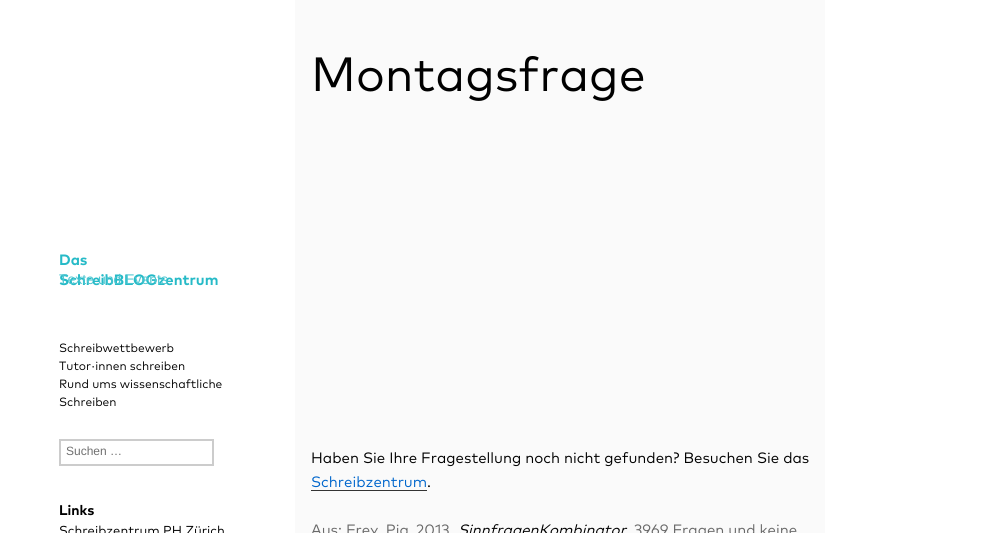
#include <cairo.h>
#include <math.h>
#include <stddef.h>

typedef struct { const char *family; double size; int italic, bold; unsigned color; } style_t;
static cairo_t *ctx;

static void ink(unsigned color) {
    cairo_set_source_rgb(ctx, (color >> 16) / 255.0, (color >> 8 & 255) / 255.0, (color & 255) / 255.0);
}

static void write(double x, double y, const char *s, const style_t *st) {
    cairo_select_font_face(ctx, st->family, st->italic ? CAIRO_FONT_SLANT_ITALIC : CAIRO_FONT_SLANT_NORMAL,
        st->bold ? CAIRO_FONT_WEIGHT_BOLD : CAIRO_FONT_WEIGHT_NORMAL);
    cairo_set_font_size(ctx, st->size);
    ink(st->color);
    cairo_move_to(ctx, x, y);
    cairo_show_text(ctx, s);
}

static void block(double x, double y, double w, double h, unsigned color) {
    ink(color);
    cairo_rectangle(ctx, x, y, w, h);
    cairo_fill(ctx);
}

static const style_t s1 = {"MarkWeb", 15, 0, 1, 0x26bac7};
static const style_t s2 = {"Liberation Sans", 14, 0, 0, 0x4cc6d1};
static const style_t s3 = {"MarkWeb", 12, 0, 0, 0x000000};
static const style_t s4 = {"Liberation Sans", 12, 0, 0, 0x707070};
static const style_t s5 = {"MarkWeb", 14, 0, 1, 0x000000};
static const style_t s6 = {"MarkWeb", 13, 0, 0, 0x000000};
static const style_t s7 = {"MarkWeb", 48, 0, 0, 0x000000};
static const style_t s8 = {"MarkWeb", 15, 0, 0, 0x000000};
static const style_t s9 = {"MarkWeb", 15, 0, 0, 0x0066cc};
static const style_t s10 = {"MarkWeb", 15, 0, 0, 0x696969};
static const style_t s11 = {"MarkWeb", 15, 1, 0, 0x000000};

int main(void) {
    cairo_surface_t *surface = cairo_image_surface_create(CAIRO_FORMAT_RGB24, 1002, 533);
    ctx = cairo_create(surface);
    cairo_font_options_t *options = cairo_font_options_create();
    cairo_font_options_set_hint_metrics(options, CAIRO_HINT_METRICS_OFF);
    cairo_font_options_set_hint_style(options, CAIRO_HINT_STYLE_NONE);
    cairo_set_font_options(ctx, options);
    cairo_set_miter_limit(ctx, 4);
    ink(0xffffff);
    cairo_paint(ctx);
    write(59, 265, "Das", &s1);
    write(59, 285, "SchreibBLOGzentrum", &s1);
    write(59, 284, "Texte und Events", &s2);
    write(59, 352, "Schreibwettbewerb", &s3);
    write(59, 370, "Tutor·innen schreiben", &s3);
    write(59, 388, "Rund ums wissenschaftliche", &s3);
    write(59, 406, "Schreiben", &s3);
    cairo_rectangle(ctx, 60, 440, 153, 25);
    ink(0xcccccc);
    cairo_stroke(ctx);
    write(66, 455, "Suchen …", &s4);
    write(59, 515, "Links", &s5);
    write(59, 535, "Schreibzentrum PH Zürich", &s6);
    block(295, 0, 530, 533, 0xfafafa);
    write(311, 91, "Montagsfrage", &s7);
    write(311, 463, "Haben Sie Ihre Fragestellung noch nicht gefunden? Besuchen Sie das", &s8);
    write(311, 487, "Schreibzentrum", &s9);
    block(311, 490, 116, 1, 0x333333);
    write(427, 487, ".", &s8);
    write(311, 535, "Aus: Frey, Pia", &s10);
    write(416, 535, "2013", &s10);
    write(458, 535, "SinnfragenKombinator", &s11);
    write(634, 535, "3969 Fragen und keine", &s10);
    cairo_surface_write_to_png(surface, "screenshot.png");
    cairo_font_options_destroy(options);
    cairo_destroy(ctx);
    cairo_surface_destroy(surface);
    return 0;
}
